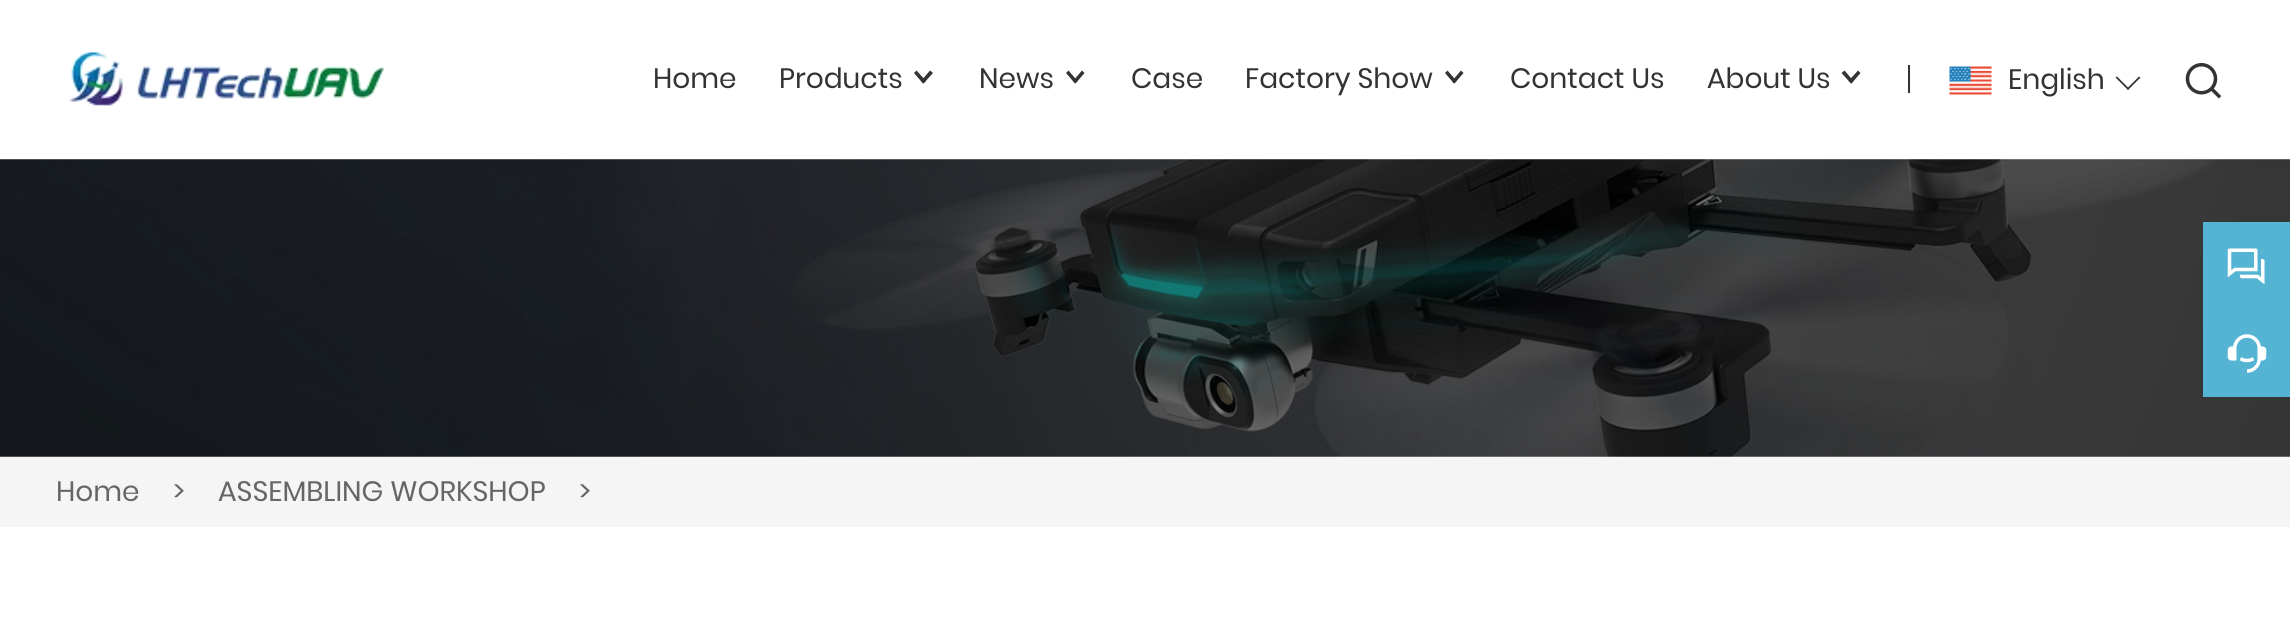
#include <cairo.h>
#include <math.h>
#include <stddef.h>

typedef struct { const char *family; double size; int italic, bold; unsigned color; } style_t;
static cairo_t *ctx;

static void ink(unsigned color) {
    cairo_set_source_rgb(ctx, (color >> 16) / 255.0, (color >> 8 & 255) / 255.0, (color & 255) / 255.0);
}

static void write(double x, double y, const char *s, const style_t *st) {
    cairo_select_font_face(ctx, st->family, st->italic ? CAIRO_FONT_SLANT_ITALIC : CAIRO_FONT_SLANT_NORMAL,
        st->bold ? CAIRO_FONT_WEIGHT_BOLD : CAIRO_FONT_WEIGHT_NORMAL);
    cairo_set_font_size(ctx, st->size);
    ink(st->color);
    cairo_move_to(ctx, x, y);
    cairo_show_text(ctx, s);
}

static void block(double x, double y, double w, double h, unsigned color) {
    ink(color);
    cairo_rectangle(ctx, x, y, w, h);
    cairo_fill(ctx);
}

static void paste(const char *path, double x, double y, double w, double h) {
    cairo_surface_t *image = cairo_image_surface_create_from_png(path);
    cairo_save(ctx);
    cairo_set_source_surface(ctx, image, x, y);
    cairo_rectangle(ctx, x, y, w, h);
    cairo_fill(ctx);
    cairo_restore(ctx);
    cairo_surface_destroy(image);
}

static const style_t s1 = {"Poppins", 28, 0, 0, 0x333333};
static const style_t s2 = {"Poppins", 28, 0, 0, 0x666666};

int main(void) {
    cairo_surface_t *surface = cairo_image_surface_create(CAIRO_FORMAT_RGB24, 2290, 618);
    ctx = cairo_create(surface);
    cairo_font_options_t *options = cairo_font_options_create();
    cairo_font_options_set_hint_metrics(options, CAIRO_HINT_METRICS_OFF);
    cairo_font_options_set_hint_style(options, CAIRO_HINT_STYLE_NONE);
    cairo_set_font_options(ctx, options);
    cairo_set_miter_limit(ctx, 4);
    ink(0xffffff);
    cairo_paint(ctx);
    paste("pic6.png", 0, 159, 2290, 298);
    cairo_set_source_rgba(ctx, 0, 0, 0, 0.05);
    cairo_new_path(ctx);
    cairo_move_to(ctx, 0, 159);
    cairo_line_to(ctx, 0, 161);
    cairo_line_to(ctx, 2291, 161);
    cairo_line_to(ctx, 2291, 2);
    cairo_line_to(ctx, 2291, 159);
    cairo_close_path(ctx);
    cairo_fill(ctx);
    paste("pic1.png", 69, 52, 315, 54);
    write(653, 88, "Home", &s1);
    write(779, 88, "Products", &s1);
    cairo_new_path(ctx);
    cairo_move_to(ctx, 916.5, 70.5);
    cairo_line_to(ctx, 926, 81);
    cairo_line_to(ctx, 923, 83.5);
    cairo_line_to(ctx, 914, 73);
    cairo_close_path(ctx);
    cairo_fill(ctx);
    cairo_new_path(ctx);
    cairo_move_to(ctx, 921, 81);
    cairo_line_to(ctx, 930, 70.5);
    cairo_line_to(ctx, 933, 73);
    cairo_line_to(ctx, 923.5, 83.5);
    cairo_close_path(ctx);
    cairo_fill(ctx);
    write(979, 88, "News", &s1);
    cairo_new_path(ctx);
    cairo_move_to(ctx, 1068.5, 70.5);
    cairo_line_to(ctx, 1077.5, 81);
    cairo_line_to(ctx, 1075, 83.5);
    cairo_line_to(ctx, 1066, 73);
    cairo_close_path(ctx);
    cairo_fill(ctx);
    cairo_new_path(ctx);
    cairo_move_to(ctx, 1073, 81);
    cairo_line_to(ctx, 1082, 70.5);
    cairo_line_to(ctx, 1084.5, 73);
    cairo_line_to(ctx, 1075.5, 83.5);
    cairo_close_path(ctx);
    cairo_fill(ctx);
    write(1131, 88, "Case", &s1);
    write(1245, 88, "Factory Show", &s1);
    cairo_new_path(ctx);
    cairo_move_to(ctx, 1447.5, 70.5);
    cairo_line_to(ctx, 1456.5, 81);
    cairo_line_to(ctx, 1454, 83.5);
    cairo_line_to(ctx, 1445, 73);
    cairo_close_path(ctx);
    cairo_fill(ctx);
    cairo_new_path(ctx);
    cairo_move_to(ctx, 1452, 81);
    cairo_line_to(ctx, 1461, 70.5);
    cairo_line_to(ctx, 1463.5, 73);
    cairo_line_to(ctx, 1454.5, 83.5);
    cairo_close_path(ctx);
    cairo_fill(ctx);
    write(1510, 88, "Contact Us", &s1);
    write(1707, 88, "About Us", &s1);
    cairo_new_path(ctx);
    cairo_move_to(ctx, 1844.5, 70.5);
    cairo_line_to(ctx, 1853.5, 81);
    cairo_line_to(ctx, 1851, 83.5);
    cairo_line_to(ctx, 1841.5, 73);
    cairo_close_path(ctx);
    cairo_fill(ctx);
    cairo_new_path(ctx);
    cairo_move_to(ctx, 1848.5, 81);
    cairo_line_to(ctx, 1858, 70.5);
    cairo_line_to(ctx, 1860.5, 73);
    cairo_line_to(ctx, 1851.5, 83.5);
    cairo_close_path(ctx);
    cairo_fill(ctx);
    block(1908, 65, 2, 28, 0x333333);
    paste("pic2.png", 1949, 66, 43, 29);
    write(2008, 89, "English", &s1);
    cairo_new_path(ctx);
    cairo_move_to(ctx, 2140.5, 77.5);
    cairo_line_to(ctx, 2128, 90);
    cairo_line_to(ctx, 2127, 88.5);
    cairo_line_to(ctx, 2139, 76.5);
    cairo_close_path(ctx);
    cairo_fill(ctx);
    cairo_new_path(ctx);
    cairo_move_to(ctx, 2129, 88.5);
    cairo_line_to(ctx, 2128, 90);
    cairo_line_to(ctx, 2115.5, 77.5);
    cairo_line_to(ctx, 2117, 76.5);
    cairo_close_path(ctx);
    cairo_fill(ctx);
    paste("pic3.png", 2185, 63, 37, 36);
    block(2203, 222, 87, 175, 0x55b4d4);
    paste("pic4.png", 2227, 248, 38, 37);
    paste("pic5.png", 2227, 334, 40, 39);
    block(0, 457, 2290, 70, 0xf5f5f5);
    write(56, 501, "Home", &s2);
    write(173, 501, ">", &s2);
    write(218, 501, "ASSEMBLING WORKSHOP", &s2);
    write(579, 501, ">", &s2);
    cairo_surface_write_to_png(surface, "screenshot.png");
    cairo_font_options_destroy(options);
    cairo_destroy(ctx);
    cairo_surface_destroy(surface);
    return 0;
}
